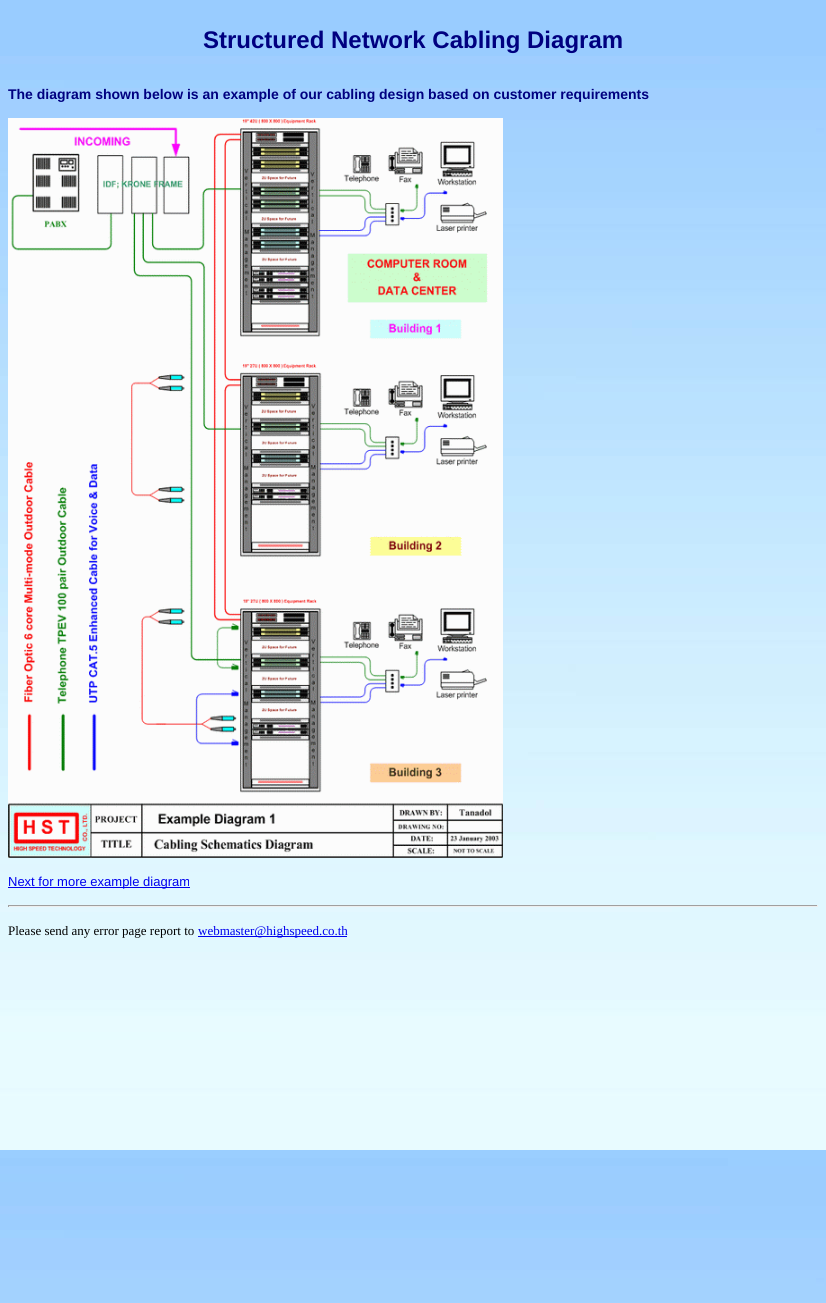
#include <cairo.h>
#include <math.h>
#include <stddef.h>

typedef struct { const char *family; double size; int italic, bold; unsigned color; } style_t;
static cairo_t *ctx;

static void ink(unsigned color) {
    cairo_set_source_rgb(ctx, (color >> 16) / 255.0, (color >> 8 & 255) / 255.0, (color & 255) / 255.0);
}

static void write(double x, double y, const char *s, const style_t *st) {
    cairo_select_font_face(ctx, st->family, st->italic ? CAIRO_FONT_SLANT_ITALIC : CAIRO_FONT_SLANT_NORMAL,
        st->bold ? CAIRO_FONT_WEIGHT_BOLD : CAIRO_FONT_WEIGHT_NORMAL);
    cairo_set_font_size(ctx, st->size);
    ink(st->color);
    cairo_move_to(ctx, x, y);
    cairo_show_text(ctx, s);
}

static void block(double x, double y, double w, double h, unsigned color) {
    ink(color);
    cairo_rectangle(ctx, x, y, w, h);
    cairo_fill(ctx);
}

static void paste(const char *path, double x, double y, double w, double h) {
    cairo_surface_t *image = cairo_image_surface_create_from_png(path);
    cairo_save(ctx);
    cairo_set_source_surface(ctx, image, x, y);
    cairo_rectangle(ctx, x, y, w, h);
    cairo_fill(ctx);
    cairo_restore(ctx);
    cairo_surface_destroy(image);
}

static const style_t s1 = {"Liberation Sans", 24, 0, 1, 0x000080};
static const style_t s2 = {"Liberation Sans", 14, 0, 1, 0x000080};
static const style_t s3 = {"Liberation Sans", 13, 0, 0, 0x0000ee};
static const style_t s4 = {"Liberation Serif", 13, 0, 0, 0x000000};
static const style_t s5 = {"Liberation Serif", 13, 0, 0, 0x0000ee};

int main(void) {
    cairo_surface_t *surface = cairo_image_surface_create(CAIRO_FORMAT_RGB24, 826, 1303);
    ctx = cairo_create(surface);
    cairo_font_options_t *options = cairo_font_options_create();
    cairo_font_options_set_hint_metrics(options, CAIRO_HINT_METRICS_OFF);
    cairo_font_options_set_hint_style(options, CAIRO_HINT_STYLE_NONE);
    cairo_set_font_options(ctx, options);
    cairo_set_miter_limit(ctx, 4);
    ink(0x99ccff);
    cairo_paint(ctx);
    paste("pic1.png", 0, 56, 826, 1247);
    write(203, 48, "Structured Network Cabling Diagram", &s1);
    write(8, 99, "The diagram shown below is an example of our cabling design based on customer requirements", &s2);
    paste("pic2.png", 8, 118, 495, 740);
    block(8, 887, 182, 1, 0x0000ee);
    write(8, 886, "Next for more example diagram", &s3);
    block(8, 905, 810, 1, 0x9f9f9f);
    block(817, 905, 1, 2, 0xeeeeee);
    block(8, 906, 810, 1, 0xeeeeee);
    block(8, 905, 1, 2, 0x9f9f9f);
    write(8, 935, "Please send any error page report to", &s4);
    block(198, 936, 149, 1, 0x0000ee);
    write(198, 935, "webmaster@highspeed.co.th", &s5);
    cairo_surface_write_to_png(surface, "screenshot.png");
    cairo_font_options_destroy(options);
    cairo_destroy(ctx);
    cairo_surface_destroy(surface);
    return 0;
}
